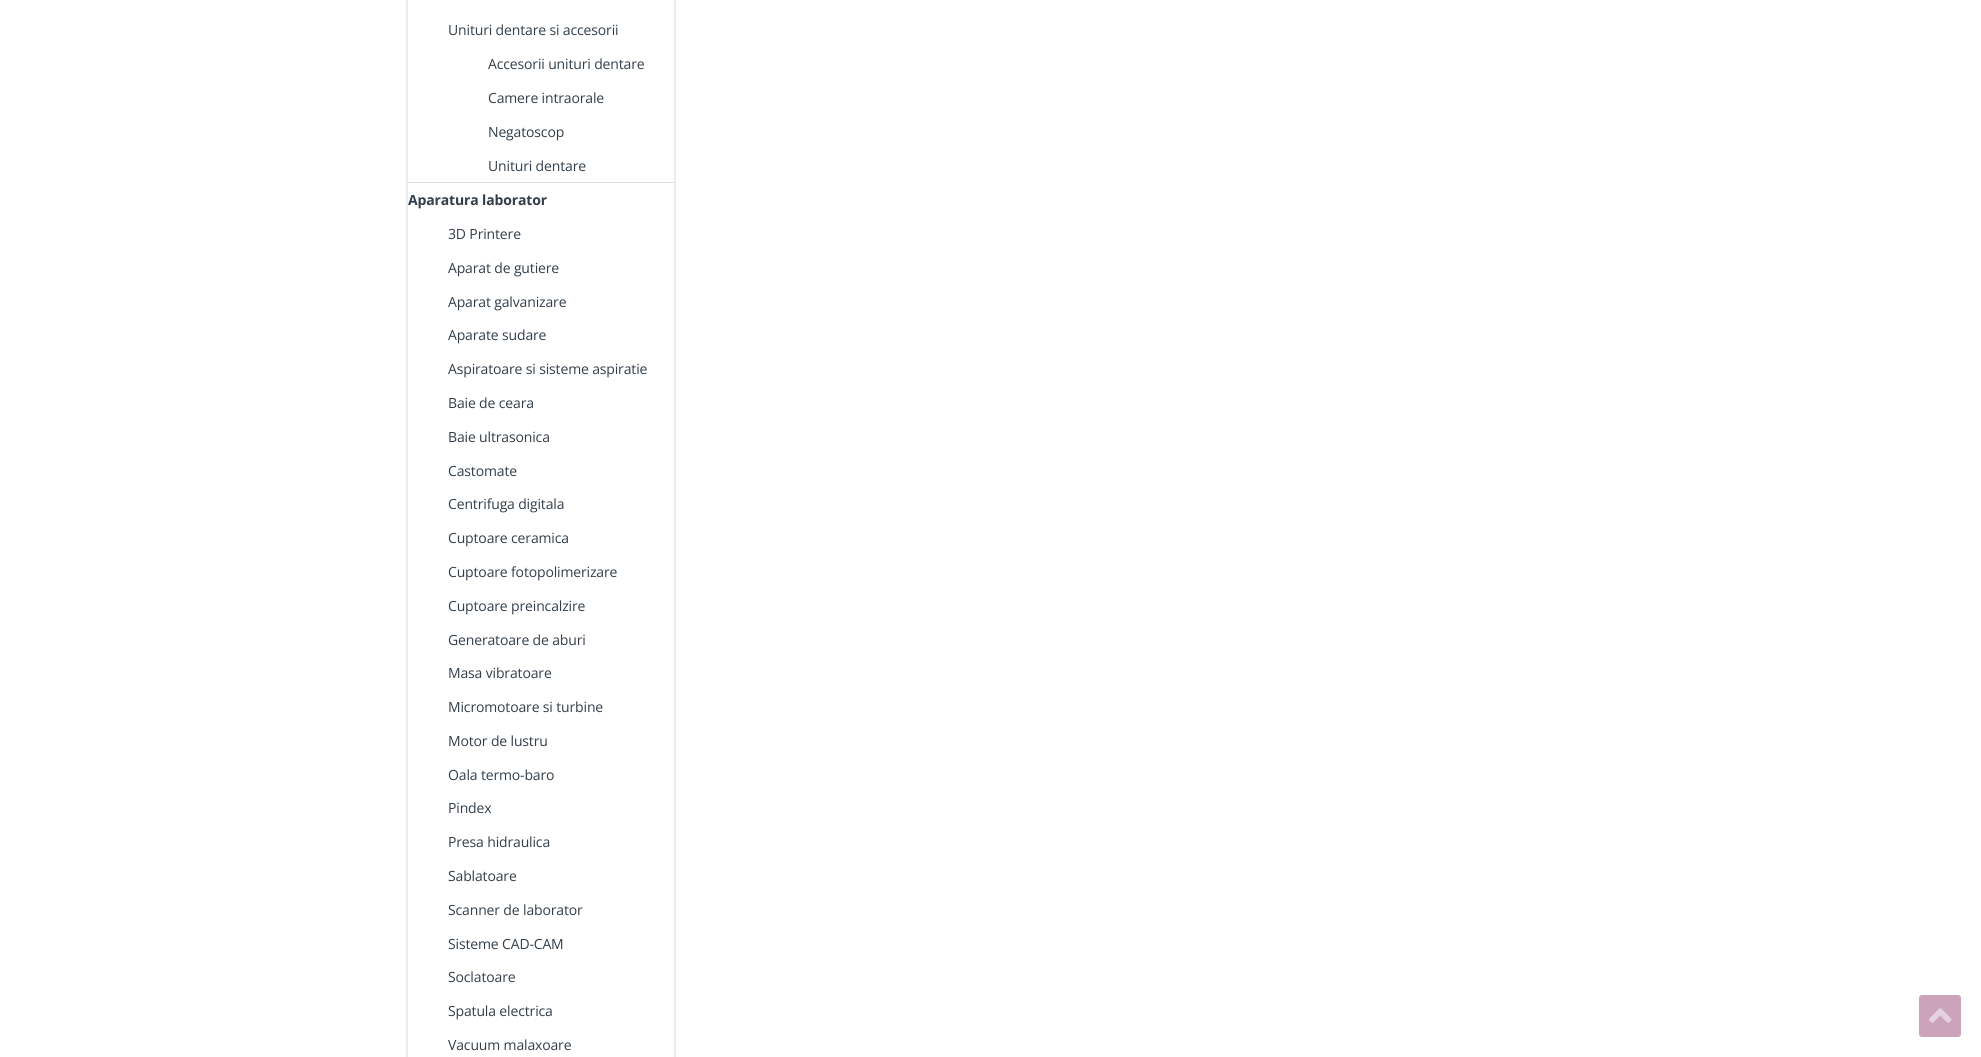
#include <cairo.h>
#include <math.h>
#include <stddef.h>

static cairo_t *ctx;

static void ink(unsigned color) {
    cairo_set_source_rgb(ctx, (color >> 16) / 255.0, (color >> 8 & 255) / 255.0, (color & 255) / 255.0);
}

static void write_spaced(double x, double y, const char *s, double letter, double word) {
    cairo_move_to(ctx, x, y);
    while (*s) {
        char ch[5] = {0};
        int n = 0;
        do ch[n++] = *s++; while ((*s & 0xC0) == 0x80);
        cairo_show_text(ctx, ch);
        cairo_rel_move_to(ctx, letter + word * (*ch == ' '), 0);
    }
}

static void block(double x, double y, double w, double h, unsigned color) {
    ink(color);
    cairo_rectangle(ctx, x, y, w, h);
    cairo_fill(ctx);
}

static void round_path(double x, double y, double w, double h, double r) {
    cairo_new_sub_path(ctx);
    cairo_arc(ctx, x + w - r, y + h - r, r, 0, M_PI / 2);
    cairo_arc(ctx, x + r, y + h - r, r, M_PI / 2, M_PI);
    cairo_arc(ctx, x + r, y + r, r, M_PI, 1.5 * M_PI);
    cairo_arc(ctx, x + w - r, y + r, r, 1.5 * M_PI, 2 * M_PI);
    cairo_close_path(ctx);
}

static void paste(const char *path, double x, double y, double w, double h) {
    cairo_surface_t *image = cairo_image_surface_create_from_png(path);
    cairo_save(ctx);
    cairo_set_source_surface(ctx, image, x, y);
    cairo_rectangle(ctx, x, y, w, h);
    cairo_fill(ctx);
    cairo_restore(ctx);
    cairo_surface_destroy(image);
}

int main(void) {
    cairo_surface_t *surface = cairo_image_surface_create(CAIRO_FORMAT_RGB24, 1981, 1057);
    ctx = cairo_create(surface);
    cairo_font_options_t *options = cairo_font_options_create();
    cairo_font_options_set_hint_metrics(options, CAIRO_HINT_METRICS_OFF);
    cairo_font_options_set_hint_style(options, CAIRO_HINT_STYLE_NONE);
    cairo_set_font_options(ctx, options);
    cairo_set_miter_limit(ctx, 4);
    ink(0xffffff);
    cairo_paint(ctx);
    cairo_rectangle(ctx, 407, -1, 268, 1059);
    ink(0xececec);
    cairo_stroke(ctx);
    cairo_select_font_face(ctx, "Open Sans", CAIRO_FONT_SLANT_NORMAL, CAIRO_FONT_WEIGHT_NORMAL);
    cairo_set_font_size(ctx, 14);
    ink(0x333e48);
    write_spaced(448, 35, "Unituri dentare si accesorii", -0.15, 0);
    write_spaced(488, 69, "Accesorii unituri dentare", -0.15, 0);
    write_spaced(488, 103, "Camere intraorale", -0.15, 0);
    write_spaced(488, 137, "Negatoscop", -0.15, 0);
    write_spaced(488, 171, "Unituri dentare", -0.15, 0);
    block(408, 182, 266, 1, 0xdddddd);
    cairo_select_font_face(ctx, "Open Sans", CAIRO_FONT_SLANT_NORMAL, CAIRO_FONT_WEIGHT_BOLD);
    ink(0x333e48);
    write_spaced(408, 205, "Aparatura laborator", -0.15, 0);
    cairo_select_font_face(ctx, "Open Sans", CAIRO_FONT_SLANT_NORMAL, CAIRO_FONT_WEIGHT_NORMAL);
    write_spaced(448, 239, "3D Printere", -0.15, 0);
    write_spaced(448, 273, "Aparat de gutiere", -0.15, 0);
    write_spaced(448, 307, "Aparat galvanizare", -0.15, 0);
    write_spaced(448, 340, "Aparate sudare", -0.15, 0);
    write_spaced(448, 374, "Aspiratoare si sisteme aspiratie", -0.15, 0);
    write_spaced(448, 408, "Baie de ceara", -0.15, 0);
    write_spaced(448, 442, "Baie ultrasonica", -0.15, 0);
    write_spaced(448, 476, "Castomate", -0.15, 0);
    write_spaced(448, 509, "Centrifuga digitala", -0.15, 0);
    write_spaced(448, 543, "Cuptoare ceramica", -0.15, 0);
    write_spaced(448, 577, "Cuptoare fotopolimerizare", -0.15, 0);
    write_spaced(448, 611, "Cuptoare preincalzire", -0.15, 0);
    write_spaced(448, 645, "Generatoare de aburi", -0.15, 0);
    write_spaced(448, 678, "Masa vibratoare", -0.15, 0);
    write_spaced(448, 712, "Micromotoare si turbine", -0.15, 0);
    write_spaced(448, 746, "Motor de lustru", -0.15, 0);
    write_spaced(448, 780, "Oala termo-baro", -0.15, 0);
    write_spaced(448, 813, "Pindex", -0.15, 0);
    write_spaced(448, 847, "Presa hidraulica", -0.15, 0);
    write_spaced(448, 881, "Sablatoare", -0.15, 0);
    write_spaced(448, 915, "Scanner de laborator", -0.15, 0);
    write_spaced(448, 949, "Sisteme CAD-CAM", -0.15, 0);
    write_spaced(448, 982, "Soclatoare", -0.15, 0);
    write_spaced(448, 1016, "Spatula electrica", -0.15, 0);
    write_spaced(448, 1050, "Vacuum malaxoare", -0.15, 0);
    ink(0xcba4bc);
    round_path(1919, 995, 42, 42, 3);
    cairo_fill(ctx);
    paste("pic1.png", 1929, 1008, 23, 15);
    cairo_surface_write_to_png(surface, "screenshot.png");
    cairo_font_options_destroy(options);
    cairo_destroy(ctx);
    cairo_surface_destroy(surface);
    return 0;
}
